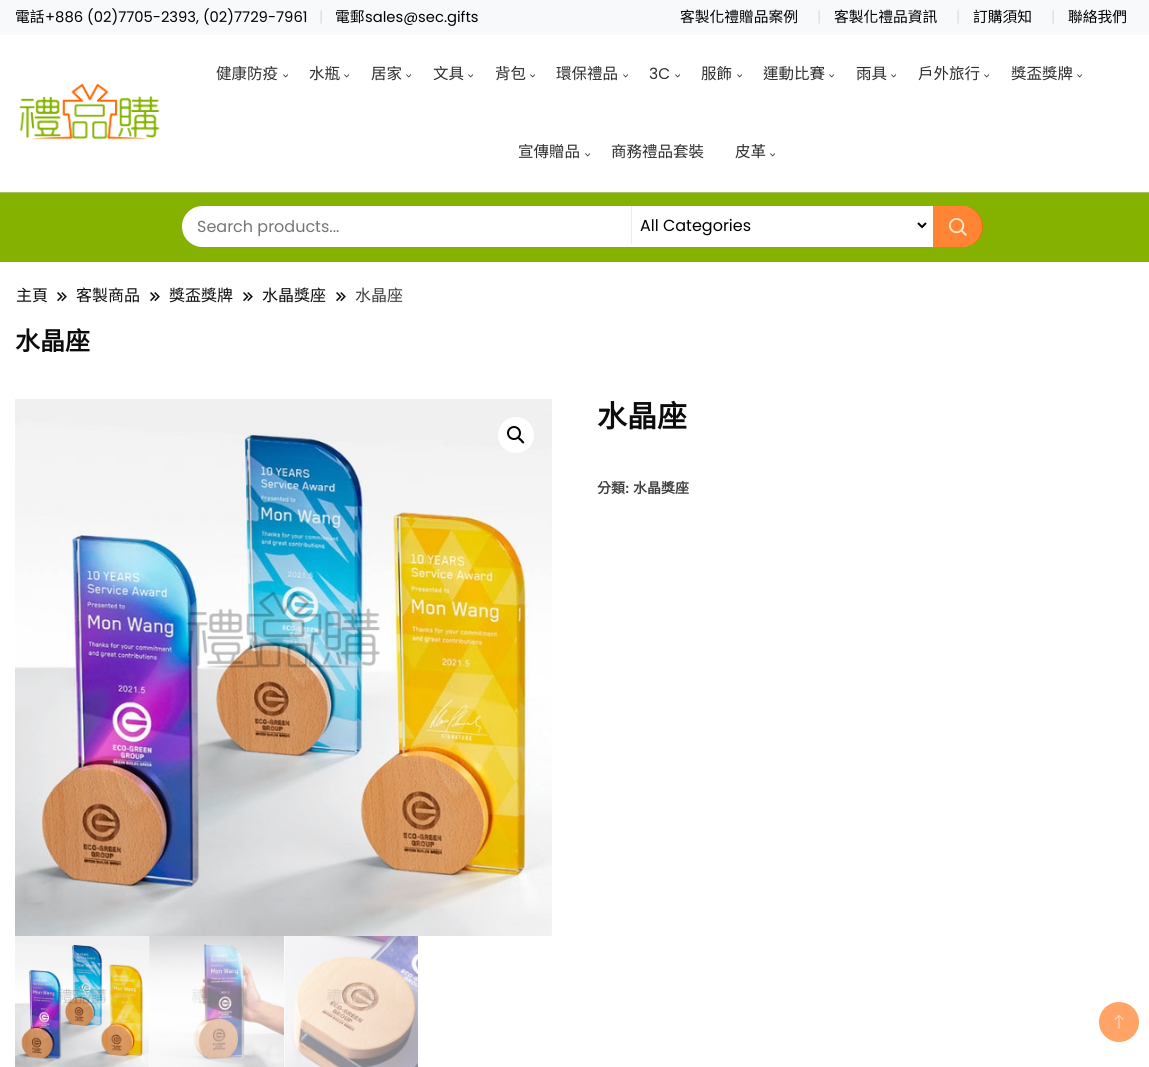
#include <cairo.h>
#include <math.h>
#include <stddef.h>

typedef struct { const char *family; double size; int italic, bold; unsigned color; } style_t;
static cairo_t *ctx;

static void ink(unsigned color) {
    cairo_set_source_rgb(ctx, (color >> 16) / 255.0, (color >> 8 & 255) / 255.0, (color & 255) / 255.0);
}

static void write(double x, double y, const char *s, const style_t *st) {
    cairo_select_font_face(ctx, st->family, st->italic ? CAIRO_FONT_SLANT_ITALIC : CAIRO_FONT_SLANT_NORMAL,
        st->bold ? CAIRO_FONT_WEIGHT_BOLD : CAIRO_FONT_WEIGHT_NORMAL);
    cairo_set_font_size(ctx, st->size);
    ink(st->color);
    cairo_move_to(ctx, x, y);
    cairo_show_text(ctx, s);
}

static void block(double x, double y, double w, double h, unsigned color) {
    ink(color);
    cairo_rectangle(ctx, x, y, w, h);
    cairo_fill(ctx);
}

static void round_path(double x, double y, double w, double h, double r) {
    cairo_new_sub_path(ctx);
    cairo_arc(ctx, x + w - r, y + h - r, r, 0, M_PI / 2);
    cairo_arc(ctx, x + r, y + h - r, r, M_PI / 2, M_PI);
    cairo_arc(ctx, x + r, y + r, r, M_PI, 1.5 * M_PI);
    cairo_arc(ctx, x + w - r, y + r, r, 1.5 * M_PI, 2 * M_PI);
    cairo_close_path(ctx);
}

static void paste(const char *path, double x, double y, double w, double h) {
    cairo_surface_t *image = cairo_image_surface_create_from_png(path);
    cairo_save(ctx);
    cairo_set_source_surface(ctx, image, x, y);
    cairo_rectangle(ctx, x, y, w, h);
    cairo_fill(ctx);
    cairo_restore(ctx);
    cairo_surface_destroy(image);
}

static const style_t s1 = {"Noto Sans CJK TC", 14.75, 0, 0, 0x000000};
static const style_t s2 = {"Poppins", 14.75, 0, 0, 0x000000};
static const style_t s3 = {"Poppins", 14.75, 0, 0, 0xdddddd};
static const style_t s4 = {"Noto Sans CJK TC", 15.5, 0, 0, 0x2d2d2d};
static const style_t s5 = {"Poppins", 10, 0, 0, 0x2d2d2d};
static const style_t s6 = {"Poppins", 15.5, 0, 0, 0x2d2d2d};
static const style_t s7 = {"Poppins", 16, 0, 0, 0x757575};
static const style_t s8 = {"Poppins", 16, 0, 0, 0x000000};
static const style_t s9 = {"Noto Sans CJK TC", 16, 0, 0, 0x0c0c0c};
static const style_t s10 = {"Noto Sans CJK TC", 16, 0, 0, 0x3d3d3d};
static const style_t s11 = {"Noto Sans CJK TC", 25, 0, 1, 0x0c0c0c};
static const style_t s12 = {"Noto Sans CJK TC", 30, 0, 1, 0x0c0c0c};
static const style_t s13 = {"Noto Sans CJK TC", 14, 0, 1, 0x3d3d3d};
static const style_t s14 = {"Inter SemiBold", 14, 0, 0, 0x3d3d3d};

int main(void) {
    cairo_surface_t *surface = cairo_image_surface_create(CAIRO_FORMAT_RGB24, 1149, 1067);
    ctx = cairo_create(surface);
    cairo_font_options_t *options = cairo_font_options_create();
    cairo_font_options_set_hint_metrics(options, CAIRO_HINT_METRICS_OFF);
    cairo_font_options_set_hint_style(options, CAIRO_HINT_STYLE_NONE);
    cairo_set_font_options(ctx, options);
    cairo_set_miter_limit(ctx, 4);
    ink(0xffffff);
    cairo_paint(ctx);
    block(0, 0, 1149, 35, 0xf8f9fa);
    write(15, 22, "電話", &s1);
    write(45, 22, "+886 (02)7705-2393, (02)7729-7961", &s2);
    write(319, 22, "|", &s3);
    write(335, 22, "電郵", &s1);
    write(365, 22, "sales@sec.gifts", &s2);
    write(680, 22, "客製化禮贈品案例", &s1);
    write(817, 22, "|", &s3);
    write(834, 22, "客製化禮品資訊", &s1);
    write(956, 22, "|", &s3);
    write(973, 22, "訂購須知", &s1);
    write(1051, 22, "|", &s3);
    write(1068, 22, "聯絡我們", &s1);
    paste("pic1.png", 19, 83, 141, 57);
    write(216, 79, "健康防疫", &s4);
    cairo_save(ctx);
    cairo_translate(ctx, 282, 73);
    cairo_rotate(ctx, 90 * M_PI / 180);
    write(0, 0, ">", &s5);
    cairo_restore(ctx);
    write(309, 79, "水瓶", &s4);
    cairo_save(ctx);
    cairo_translate(ctx, 343, 73);
    cairo_rotate(ctx, 90 * M_PI / 180);
    write(0, 0, ">", &s5);
    cairo_restore(ctx);
    write(371, 79, "居家", &s4);
    cairo_save(ctx);
    cairo_translate(ctx, 405, 73);
    cairo_rotate(ctx, 90 * M_PI / 180);
    write(0, 0, ">", &s5);
    cairo_restore(ctx);
    write(433, 79, "文具", &s4);
    cairo_save(ctx);
    cairo_translate(ctx, 467, 73);
    cairo_rotate(ctx, 90 * M_PI / 180);
    write(0, 0, ">", &s5);
    cairo_restore(ctx);
    write(495, 79, "背包", &s4);
    cairo_save(ctx);
    cairo_translate(ctx, 529, 73);
    cairo_rotate(ctx, 90 * M_PI / 180);
    write(0, 0, ">", &s5);
    cairo_restore(ctx);
    write(556, 79, "環保禮品", &s4);
    cairo_save(ctx);
    cairo_translate(ctx, 622, 73);
    cairo_rotate(ctx, 90 * M_PI / 180);
    write(0, 0, ">", &s5);
    cairo_restore(ctx);
    write(649, 79, "3C", &s6);
    cairo_save(ctx);
    cairo_translate(ctx, 674, 73);
    cairo_rotate(ctx, 90 * M_PI / 180);
    write(0, 0, ">", &s5);
    cairo_restore(ctx);
    write(701, 79, "服飾", &s4);
    cairo_save(ctx);
    cairo_translate(ctx, 736, 73);
    cairo_rotate(ctx, 90 * M_PI / 180);
    write(0, 0, ">", &s5);
    cairo_restore(ctx);
    write(763, 79, "運動比賽", &s4);
    cairo_save(ctx);
    cairo_translate(ctx, 828, 73);
    cairo_rotate(ctx, 90 * M_PI / 180);
    write(0, 0, ">", &s5);
    cairo_restore(ctx);
    write(856, 79, "雨具", &s4);
    cairo_save(ctx);
    cairo_translate(ctx, 890, 73);
    cairo_rotate(ctx, 90 * M_PI / 180);
    write(0, 0, ">", &s5);
    cairo_restore(ctx);
    write(918, 79, "戶外旅行", &s4);
    cairo_save(ctx);
    cairo_translate(ctx, 983, 73);
    cairo_rotate(ctx, 90 * M_PI / 180);
    write(0, 0, ">", &s5);
    cairo_restore(ctx);
    write(1011, 79, "獎盃獎牌", &s4);
    cairo_save(ctx);
    cairo_translate(ctx, 1076, 73);
    cairo_rotate(ctx, 90 * M_PI / 180);
    write(0, 0, ">", &s5);
    cairo_restore(ctx);
    write(518, 157, "宣傳贈品", &s4);
    cairo_save(ctx);
    cairo_translate(ctx, 584, 152);
    cairo_rotate(ctx, 90 * M_PI / 180);
    write(0, 0, ">", &s5);
    cairo_restore(ctx);
    write(611, 157, "商務禮品套裝", &s4);
    write(735, 157, "皮革", &s4);
    cairo_save(ctx);
    cairo_translate(ctx, 769, 152);
    cairo_rotate(ctx, 90 * M_PI / 180);
    write(0, 0, ">", &s5);
    cairo_restore(ctx);
    block(0, 193, 1149, 69, 0x85b100);
    block(0, 192, 1149, 1, 0xabc26a);
    ink(0xffffff);
    round_path(182, 206, 800, 41, 20.5);
    cairo_fill(ctx);
    write(197, 232, "Search products...", &s7);
    block(631, 206, 1, 38, 0xececec);
    cairo_new_path(ctx);
    cairo_move_to(ctx, 918, 223);
    cairo_line_to(ctx, 922, 227);
    cairo_line_to(ctx, 926, 223);
    ink(0x000000);
    cairo_stroke(ctx);
    write(640, 231, "All Categories", &s8);
    cairo_set_source_rgba(ctx, 1, 0.4, 0, 0.8);
    cairo_new_path(ctx);
    cairo_move_to(ctx, 933, 206);
    cairo_line_to(ctx, 962.5, 206);
    cairo_curve_to(ctx, 974, 206, 983, 215, 983, 226.5);
    cairo_curve_to(ctx, 983, 238, 974, 247, 962.5, 247);
    cairo_line_to(ctx, 933, 247);
    cairo_close_path(ctx);
    cairo_fill(ctx);
    paste("pic2.png", 949, 218, 18, 18);
    write(16, 301, "主頁", &s9);
    paste("pic3.png", 57, 292, 10, 10);
    write(76, 301, "客製商品", &s9);
    paste("pic3.png", 150, 292, 10, 10);
    write(169, 301, "獎盃獎牌", &s9);
    paste("pic3.png", 243, 292, 10, 10);
    write(262, 301, "水晶獎座", &s9);
    paste("pic3.png", 336, 292, 10, 10);
    write(355, 301, "水晶座", &s10);
    write(15, 350, "水晶座", &s11);
    paste("pic4.png", 15, 399, 537, 537);
    ink(0xffffff);
    cairo_arc(ctx, 516, 435, 18, 0, 2 * M_PI);
    cairo_fill(ctx);
    cairo_arc(ctx, 514, 433, 6, 0, 2 * M_PI);
    ink(0x000000);
    cairo_stroke(ctx);
    cairo_new_path(ctx);
    cairo_move_to(ctx, 518.5, 437.5);
    cairo_curve_to(ctx, 519.5, 436.5, 521, 439, 522, 439.5);
    cairo_curve_to(ctx, 522.5, 440.5, 525, 442, 524, 443);
    cairo_curve_to(ctx, 522.5, 444.5, 521, 441.5, 520.5, 441);
    cairo_curve_to(ctx, 520, 440.5, 517, 439, 518.5, 437.5);
    cairo_close_path(ctx);
    cairo_fill(ctx);
    paste("pic5.png", 15, 936, 134, 131);
    paste("pic6.png", 149, 936, 135, 131);
    paste("pic7.png", 284, 936, 134, 131);
    write(597, 427, "水晶座", &s12);
    write(597, 493, "分類", &s13);
    write(625, 493, ":", &s14);
    write(633, 493, "水晶獎座", &s13);
    ink(0xffa366);
    cairo_new_path(ctx);
    cairo_arc(ctx, 1119, 1022, 20, 0, 2 * M_PI);
    cairo_fill(ctx);
    paste("pic8.png", 1114, 1015, 10, 14);
    cairo_surface_write_to_png(surface, "screenshot.png");
    cairo_font_options_destroy(options);
    cairo_destroy(ctx);
    cairo_surface_destroy(surface);
    return 0;
}
